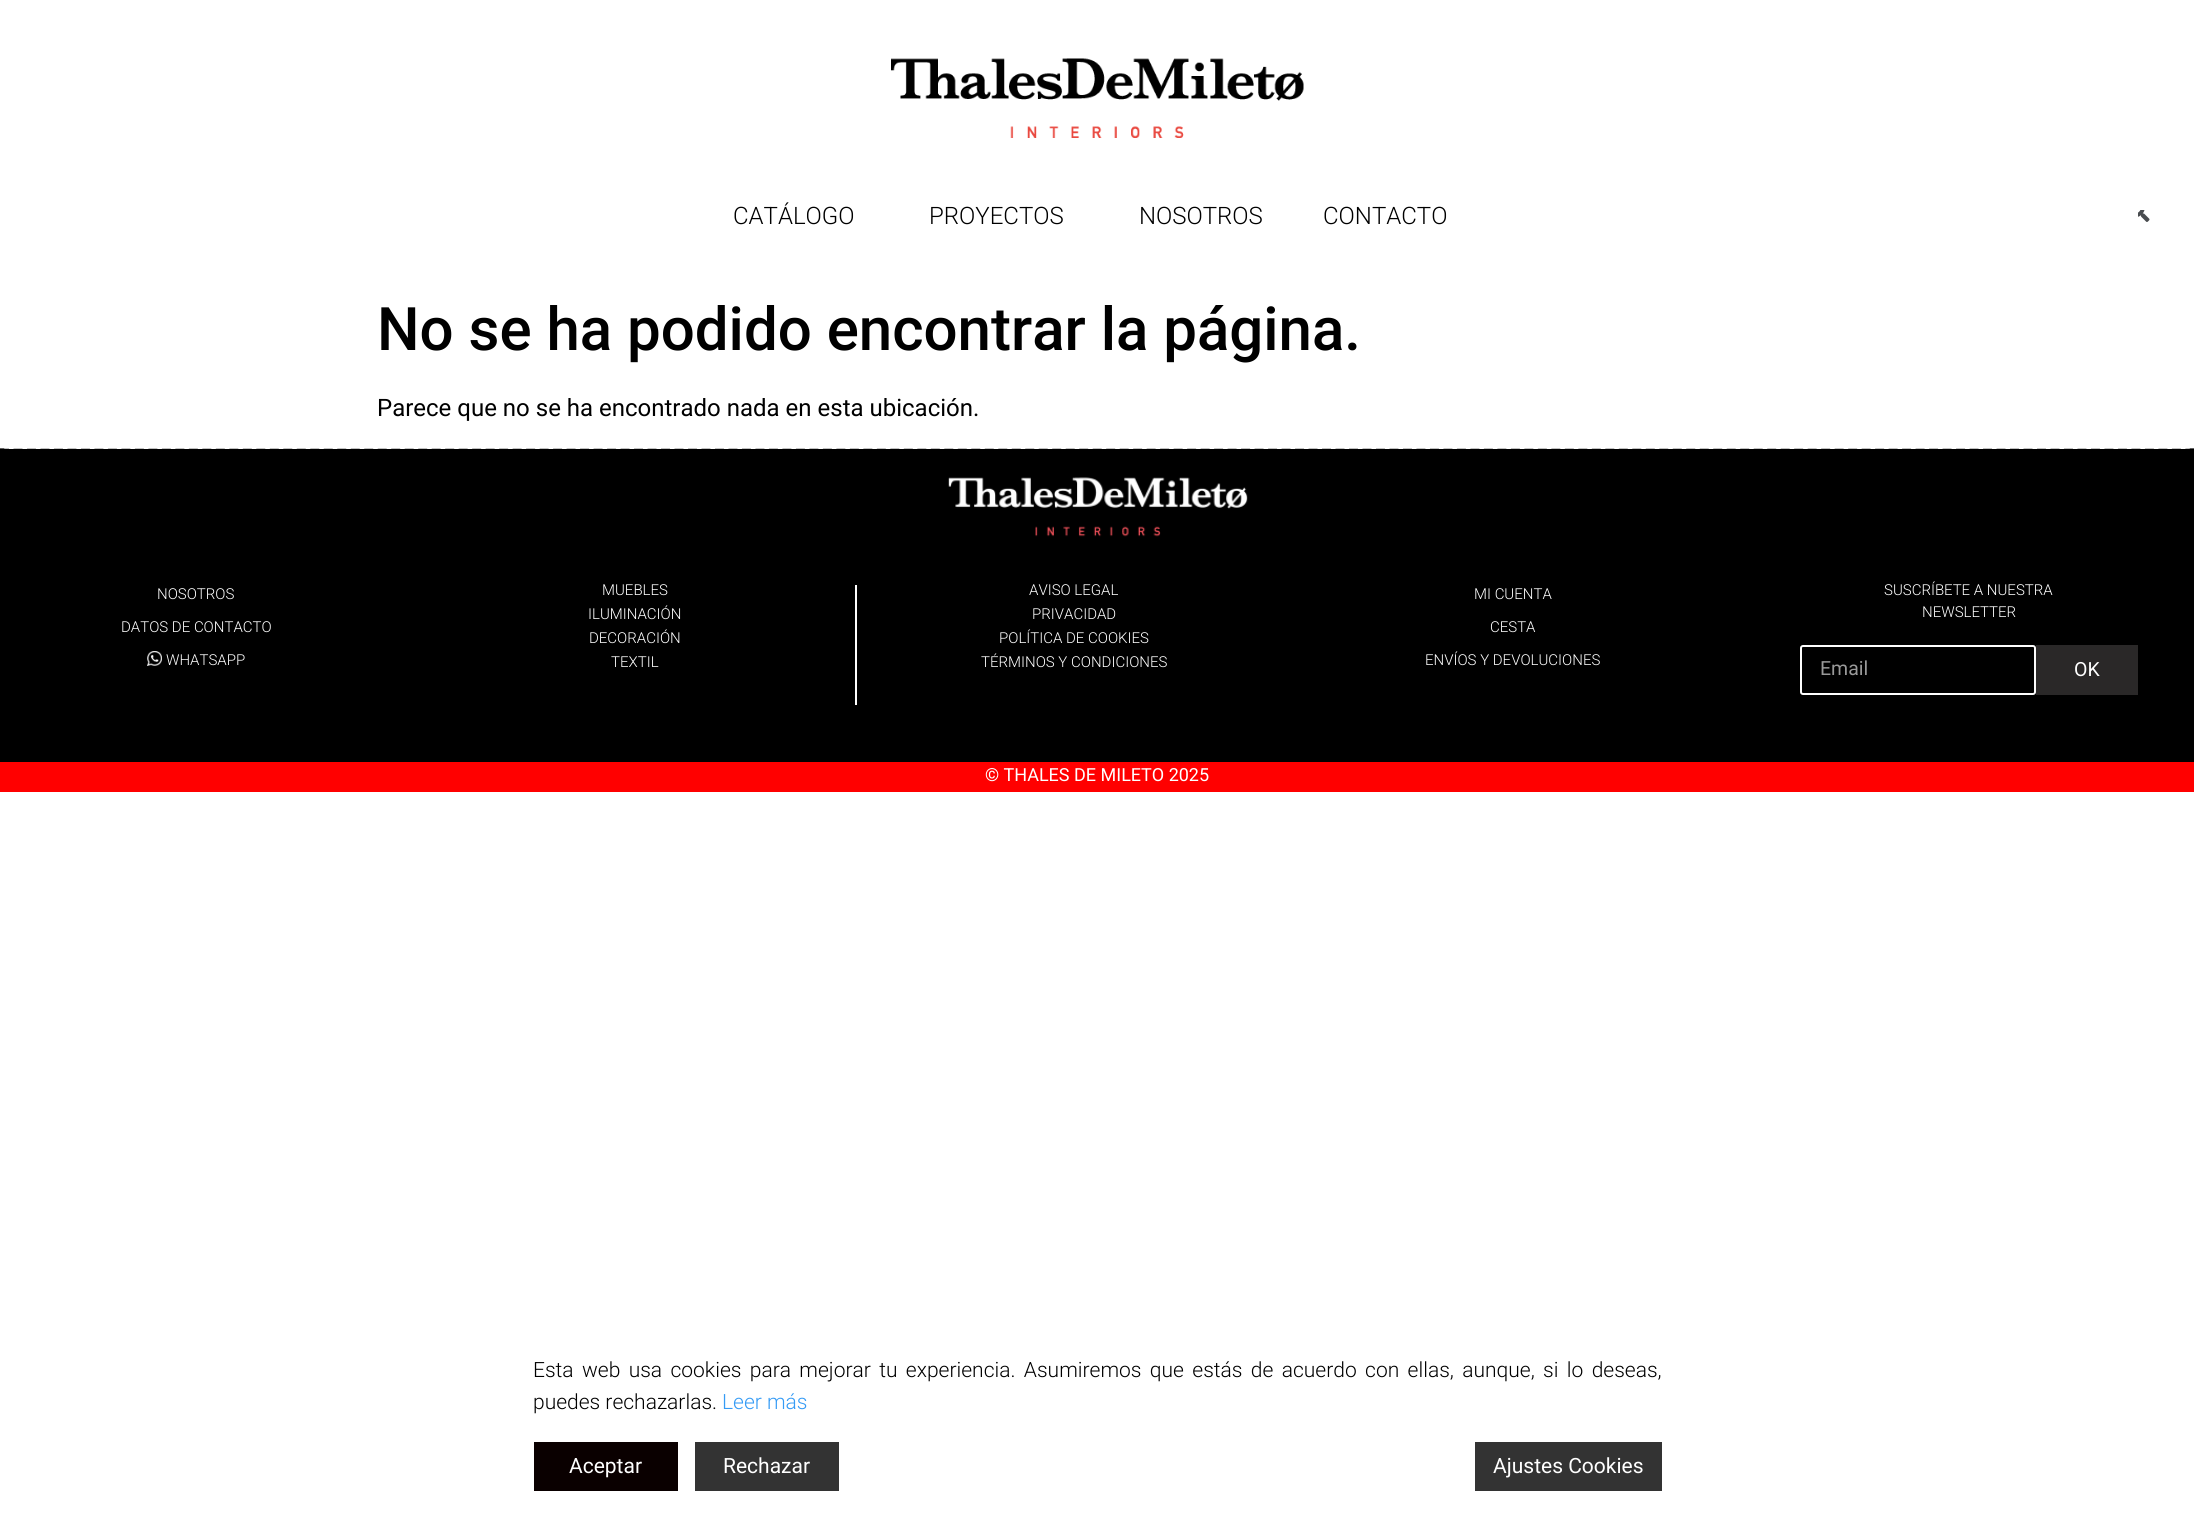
#include <cairo.h>
#include <math.h>
#include <stddef.h>

typedef struct { const char *family; double size; int italic, bold; unsigned color; } style_t;
static cairo_t *ctx;

static void ink(unsigned color) {
    cairo_set_source_rgb(ctx, (color >> 16) / 255.0, (color >> 8 & 255) / 255.0, (color & 255) / 255.0);
}

static void write(double x, double y, const char *s, const style_t *st) {
    cairo_select_font_face(ctx, st->family, st->italic ? CAIRO_FONT_SLANT_ITALIC : CAIRO_FONT_SLANT_NORMAL,
        st->bold ? CAIRO_FONT_WEIGHT_BOLD : CAIRO_FONT_WEIGHT_NORMAL);
    cairo_set_font_size(ctx, st->size);
    ink(st->color);
    cairo_move_to(ctx, x, y);
    cairo_show_text(ctx, s);
}

static void write_spaced(double x, double y, const char *s, double letter, double word) {
    cairo_move_to(ctx, x, y);
    while (*s) {
        char ch[5] = {0};
        int n = 0;
        do ch[n++] = *s++; while ((*s & 0xC0) == 0x80);
        cairo_show_text(ctx, ch);
        cairo_rel_move_to(ctx, letter + word * (*ch == ' '), 0);
    }
}

static void block(double x, double y, double w, double h, unsigned color) {
    ink(color);
    cairo_rectangle(ctx, x, y, w, h);
    cairo_fill(ctx);
}

static void round_path(double x, double y, double w, double h, double r) {
    cairo_new_sub_path(ctx);
    cairo_arc(ctx, x + w - r, y + h - r, r, 0, M_PI / 2);
    cairo_arc(ctx, x + r, y + h - r, r, M_PI / 2, M_PI);
    cairo_arc(ctx, x + r, y + r, r, M_PI, 1.5 * M_PI);
    cairo_arc(ctx, x + w - r, y + r, r, 1.5 * M_PI, 2 * M_PI);
    cairo_close_path(ctx);
}

static void paste(const char *path, double x, double y, double w, double h) {
    cairo_surface_t *image = cairo_image_surface_create_from_png(path);
    cairo_save(ctx);
    cairo_set_source_surface(ctx, image, x, y);
    cairo_rectangle(ctx, x, y, w, h);
    cairo_fill(ctx);
    cairo_restore(ctx);
    cairo_surface_destroy(image);
}

static const style_t s1 = {"Roboto Light", 24, 0, 0, 0x000000};
static const style_t s2 = {"Roboto Medium", 60, 0, 0, 0x000000};
static const style_t s3 = {"Roboto", 24, 0, 0, 0x000000};
static const style_t s4 = {"Roboto Light", 15, 0, 0, 0xffffff};
static const style_t s5 = {"Roboto", 19.5, 0, 0, 0x999999};
static const style_t s6 = {"Roboto", 19.5, 0, 0, 0xffffff};
static const style_t s7 = {"Roboto", 18, 0, 0, 0xffffff};
static const style_t s8 = {"Roboto Light", 21, 0, 0, 0x000000};
static const style_t s9 = {"Roboto Light", 21, 0, 0, 0x359bf5};
static const style_t s10 = {"Roboto", 21, 0, 0, 0xffffff};

int main(void) {
    cairo_surface_t *surface = cairo_image_surface_create(CAIRO_FORMAT_RGB24, 2194, 1527);
    ctx = cairo_create(surface);
    cairo_font_options_t *options = cairo_font_options_create();
    cairo_font_options_set_hint_metrics(options, CAIRO_HINT_METRICS_OFF);
    cairo_font_options_set_hint_style(options, CAIRO_HINT_STYLE_NONE);
    cairo_set_font_options(ctx, options);
    cairo_set_miter_limit(ctx, 4);
    ink(0xffffff);
    cairo_paint(ctx);
    paste("pic1.png", 891, 58, 413, 80);
    write(733, 224, "CATÁLOGO", &s1);
    write(929, 224, "PROYECTOS", &s1);
    write(1139, 224, "NOSOTROS", &s1);
    write(1323, 224, "CONTACTO", &s1);
    paste("pic2.png", 2138, 210, 12, 12);
    write(377, 350, "No se ha podido encontrar la página.", &s2);
    write(377, 416, "Parece que no se ha encontrado nada en esta ubicación.", &s3);
    block(0, 449, 2194, 313, 0x000000);
    cairo_new_path(ctx);
    cairo_move_to(ctx, 0, 451);
    cairo_line_to(ctx, 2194.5, 451);
    cairo_set_line_width(ctx, 4.5);
    cairo_set_dash(ctx, (double[]){9, 4.49}, 2, 0);
    cairo_stroke(ctx);
    cairo_new_path(ctx);
    cairo_move_to(ctx, 2192, 448.5);
    cairo_line_to(ctx, 2192, 564);
    cairo_set_dash(ctx, (double[]){9, 4.32}, 2, 0);
    cairo_stroke(ctx);
    cairo_new_path(ctx);
    cairo_move_to(ctx, 2, 448.5);
    cairo_line_to(ctx, 2, 564);
    cairo_stroke(ctx);
    paste("pic3.png", 948, 477, 300, 60);
    write(157, 599, "NOSOTROS", &s4);
    write(121, 632, "DATOS DE CONTACTO", &s4);
    paste("pic4.png", 147, 651, 15, 15);
    write(166, 665, "WHATSAPP", &s4);
    write(602, 595, "MUEBLES", &s4);
    write(588, 619, "ILUMINACIÓN", &s4);
    write(589, 643, "DECORACIÓN", &s4);
    write(611, 667, "TEXTIL", &s4);
    block(855, 585, 2, 120, 0xffffff);
    write(1029, 595, "AVISO LEGAL", &s4);
    write(1032, 619, "PRIVACIDAD", &s4);
    write(999, 643, "POLÍTICA DE COOKIES", &s4);
    write(981, 667, "TÉRMINOS Y CONDICIONES", &s4);
    write(1474, 599, "MI CUENTA", &s4);
    write(1490, 632, "CESTA", &s4);
    write(1425, 665, "ENVÍOS Y DEVOLUCIONES", &s4);
    write(1884, 595, "SUSCRÍBETE A NUESTRA", &s4);
    write(1922, 617, "NEWSLETTER", &s4);
    round_path(1801, 646, 234, 48, 2);
    ink(0xfdfdfd);
    cairo_set_line_width(ctx, 2);
    cairo_set_dash(ctx, NULL, 0, 0);
    cairo_stroke(ctx);
    write(1820, 675, "Email", &s5);
    block(2036, 645, 102, 50, 0x2a2828);
    write(2074, 676, "OK", &s6);
    block(0, 762, 2194, 30, 0xff0000);
    write(985, 781, "© THALES DE MILETO 2025", &s7);
    cairo_select_font_face(ctx, "Roboto Light", CAIRO_FONT_SLANT_NORMAL, CAIRO_FONT_WEIGHT_NORMAL);
    cairo_set_font_size(ctx, 21);
    ink(0x000000);
    write_spaced(533, 1377, "Esta web usa cookies para mejorar tu experiencia. Asumiremos que estás de acuerdo con ellas, aunque, si lo deseas,", 0, 3.25);
    write(533, 1409, "puedes rechazarlas.", &s8);
    write(722, 1409, "Leer más", &s9);
    block(534, 1442, 144, 49, 0x0a0000);
    write(569, 1473, "Aceptar", &s10);
    block(695, 1442, 144, 49, 0x333333);
    write(723, 1473, "Rechazar", &s10);
    block(1475, 1442, 187, 49, 0x333333);
    write(1493, 1473, "Ajustes Cookies", &s10);
    cairo_surface_write_to_png(surface, "screenshot.png");
    cairo_font_options_destroy(options);
    cairo_destroy(ctx);
    cairo_surface_destroy(surface);
    return 0;
}
